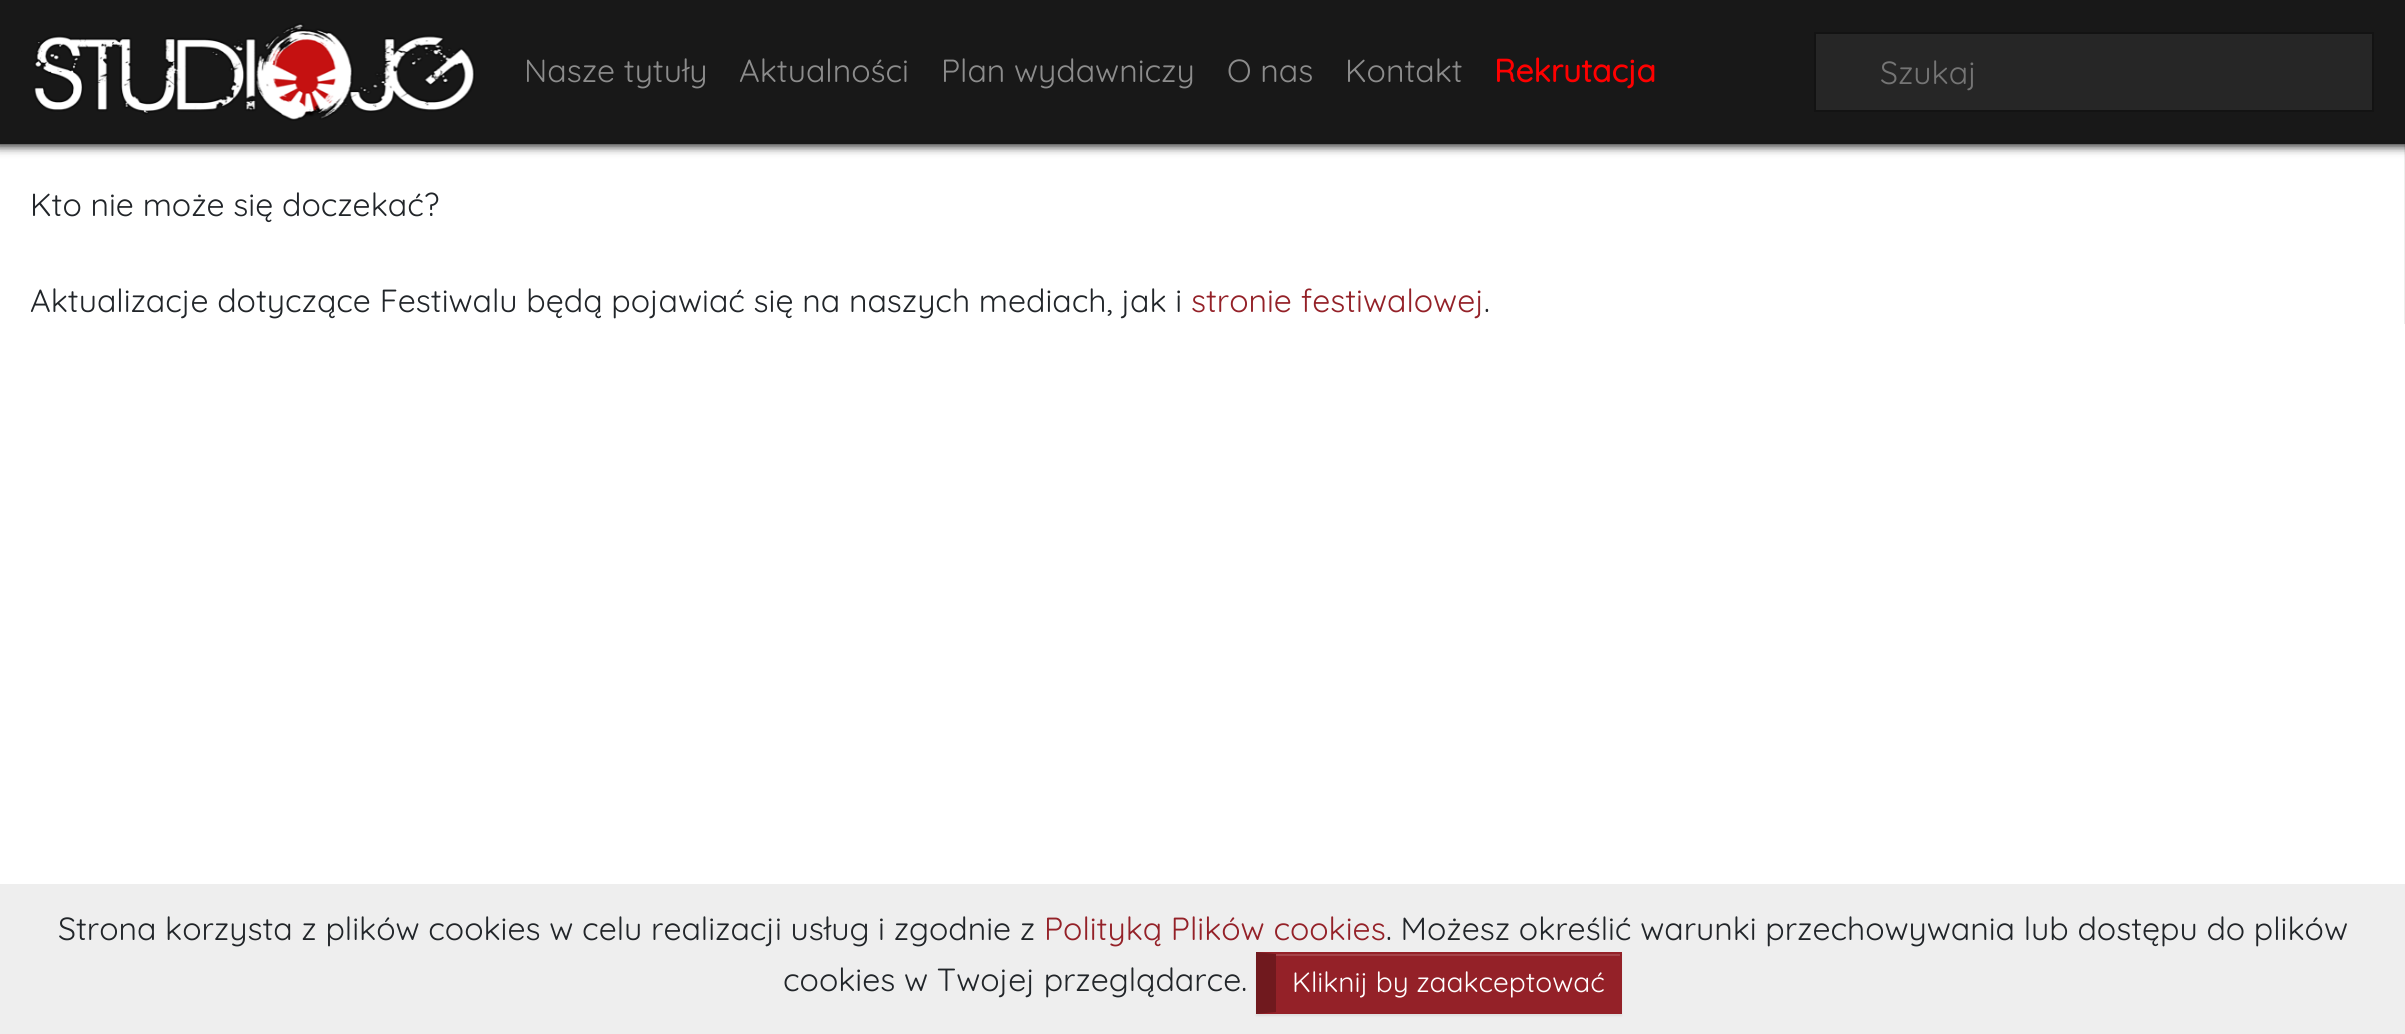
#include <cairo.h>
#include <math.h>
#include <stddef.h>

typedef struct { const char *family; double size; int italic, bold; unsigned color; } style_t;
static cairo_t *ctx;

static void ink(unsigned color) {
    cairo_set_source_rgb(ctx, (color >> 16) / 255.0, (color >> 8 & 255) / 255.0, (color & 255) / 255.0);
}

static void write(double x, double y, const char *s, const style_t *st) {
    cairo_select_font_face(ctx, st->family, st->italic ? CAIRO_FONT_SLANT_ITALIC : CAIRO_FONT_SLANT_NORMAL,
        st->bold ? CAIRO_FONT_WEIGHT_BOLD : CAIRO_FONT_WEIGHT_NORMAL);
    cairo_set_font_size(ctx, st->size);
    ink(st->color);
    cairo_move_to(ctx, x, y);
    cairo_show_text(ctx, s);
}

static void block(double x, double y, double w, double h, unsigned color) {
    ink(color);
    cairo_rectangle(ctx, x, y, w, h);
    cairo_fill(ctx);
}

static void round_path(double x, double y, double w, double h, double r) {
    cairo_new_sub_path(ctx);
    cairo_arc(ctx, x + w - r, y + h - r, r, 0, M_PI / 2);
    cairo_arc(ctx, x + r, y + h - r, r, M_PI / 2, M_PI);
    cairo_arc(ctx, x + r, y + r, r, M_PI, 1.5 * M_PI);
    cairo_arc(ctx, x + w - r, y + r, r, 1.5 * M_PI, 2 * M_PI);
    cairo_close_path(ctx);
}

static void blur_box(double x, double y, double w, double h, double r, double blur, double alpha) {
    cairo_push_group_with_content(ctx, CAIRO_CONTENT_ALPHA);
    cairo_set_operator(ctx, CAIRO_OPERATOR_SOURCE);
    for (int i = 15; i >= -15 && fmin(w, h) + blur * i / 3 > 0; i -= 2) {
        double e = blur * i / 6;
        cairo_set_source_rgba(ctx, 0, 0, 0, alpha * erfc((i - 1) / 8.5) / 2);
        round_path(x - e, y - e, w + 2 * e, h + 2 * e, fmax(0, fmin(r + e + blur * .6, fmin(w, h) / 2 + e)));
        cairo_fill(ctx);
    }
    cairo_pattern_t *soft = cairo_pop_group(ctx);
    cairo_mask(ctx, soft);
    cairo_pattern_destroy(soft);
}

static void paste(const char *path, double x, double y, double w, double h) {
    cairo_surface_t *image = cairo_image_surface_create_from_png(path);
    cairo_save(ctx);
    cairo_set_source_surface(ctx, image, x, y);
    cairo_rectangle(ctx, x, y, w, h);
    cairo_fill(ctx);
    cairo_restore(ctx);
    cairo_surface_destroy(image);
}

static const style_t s1 = {"Quicksand Light", 32, 0, 0, 0x8c8c8c};
static const style_t s2 = {"Quicksand", 32, 0, 1, 0xff0000};
static const style_t s3 = {"Quicksand Light", 32, 0, 0, 0x757575};
static const style_t s4 = {"Quicksand Light", 32, 0, 0, 0x212529};
static const style_t s5 = {"Quicksand Light", 32, 0, 0, 0x942128};
static const style_t s6 = {"Quicksand Light", 28, 0, 0, 0xffffff};

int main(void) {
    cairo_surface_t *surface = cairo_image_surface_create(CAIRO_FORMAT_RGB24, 2405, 1034);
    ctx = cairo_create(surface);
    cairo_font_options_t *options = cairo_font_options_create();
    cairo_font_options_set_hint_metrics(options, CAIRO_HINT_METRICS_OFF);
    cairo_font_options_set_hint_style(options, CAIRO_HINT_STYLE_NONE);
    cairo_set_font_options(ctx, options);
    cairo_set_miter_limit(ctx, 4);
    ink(0xffffff);
    cairo_paint(ctx);
    block(2404, 144, 1, 180, 0xeeeeee);
    ink(0x181818);
    blur_box(-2, -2, 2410, 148, 0, 5, 1);
    block(0, 0, 2405, 144, 0x181818);
    paste("pic1.png", 33, 23, 442, 98);
    write(524, 82, "Nasze tytuły", &s1);
    write(739, 82, "Aktualności", &s1);
    write(941, 82, "Plan wydawniczy", &s1);
    write(1227, 82, "O nas", &s1);
    write(1345, 82, "Kontakt", &s1);
    write(1494, 82, "Rekrutacja", &s2);
    ink(0x262626);
    cairo_rectangle(ctx, 1815, 33, 558, 78);
    cairo_fill_preserve(ctx);
    ink(0x131313);
    cairo_stroke(ctx);
    write(1880, 84, "Szukaj", &s3);
    write(30, 216, "Kto nie może się doczekać?", &s4);
    write(30, 312, "Aktualizacje dotyczące Festiwalu będą pojawiać się na naszych mediach, jak i", &s4);
    write(1191, 312, "stronie festiwalowej", &s5);
    write(1484, 312, ".", &s4);
    block(0, 884, 2405, 150, 0xeeeeee);
    write(58, 940, "Strona korzysta z plików cookies w celu realizacji usług i zgodnie z", &s4);
    write(1044, 940, "Polityką Plików cookies", &s5);
    write(1386, 940, ". Możesz określić warunki przechowywania lub dostępu do plików", &s4);
    write(783, 991, "cookies w Twojej przeglądarce.", &s4);
    ink(0x000000);
    blur_box(1256, 954, 366, 62, 0, 1, 0.07);
    block(1256, 952, 366, 62, 0x942128);
    block(1276, 954, 344, 2, 0xa44248);
    ink(0x70191e);
    cairo_new_path(ctx);
    cairo_move_to(ctx, 1256, 1014);
    cairo_line_to(ctx, 1256, 952);
    cairo_line_to(ctx, 1276, 954);
    cairo_line_to(ctx, 1276, 1012);
    cairo_close_path(ctx);
    cairo_fill(ctx);
    write(1292, 992, "Kliknij by zaakceptować", &s6);
    cairo_surface_write_to_png(surface, "screenshot.png");
    cairo_font_options_destroy(options);
    cairo_destroy(ctx);
    cairo_surface_destroy(surface);
    return 0;
}
